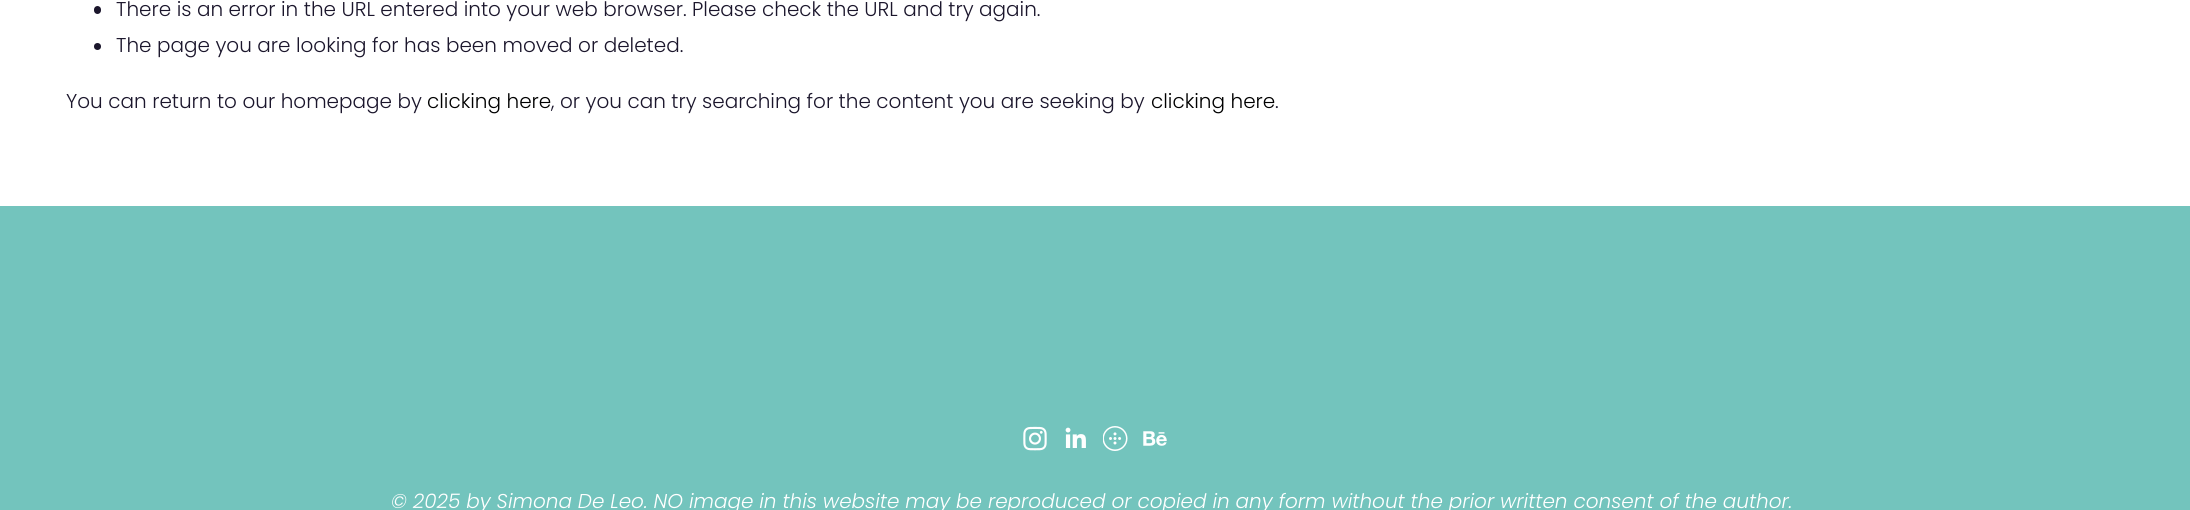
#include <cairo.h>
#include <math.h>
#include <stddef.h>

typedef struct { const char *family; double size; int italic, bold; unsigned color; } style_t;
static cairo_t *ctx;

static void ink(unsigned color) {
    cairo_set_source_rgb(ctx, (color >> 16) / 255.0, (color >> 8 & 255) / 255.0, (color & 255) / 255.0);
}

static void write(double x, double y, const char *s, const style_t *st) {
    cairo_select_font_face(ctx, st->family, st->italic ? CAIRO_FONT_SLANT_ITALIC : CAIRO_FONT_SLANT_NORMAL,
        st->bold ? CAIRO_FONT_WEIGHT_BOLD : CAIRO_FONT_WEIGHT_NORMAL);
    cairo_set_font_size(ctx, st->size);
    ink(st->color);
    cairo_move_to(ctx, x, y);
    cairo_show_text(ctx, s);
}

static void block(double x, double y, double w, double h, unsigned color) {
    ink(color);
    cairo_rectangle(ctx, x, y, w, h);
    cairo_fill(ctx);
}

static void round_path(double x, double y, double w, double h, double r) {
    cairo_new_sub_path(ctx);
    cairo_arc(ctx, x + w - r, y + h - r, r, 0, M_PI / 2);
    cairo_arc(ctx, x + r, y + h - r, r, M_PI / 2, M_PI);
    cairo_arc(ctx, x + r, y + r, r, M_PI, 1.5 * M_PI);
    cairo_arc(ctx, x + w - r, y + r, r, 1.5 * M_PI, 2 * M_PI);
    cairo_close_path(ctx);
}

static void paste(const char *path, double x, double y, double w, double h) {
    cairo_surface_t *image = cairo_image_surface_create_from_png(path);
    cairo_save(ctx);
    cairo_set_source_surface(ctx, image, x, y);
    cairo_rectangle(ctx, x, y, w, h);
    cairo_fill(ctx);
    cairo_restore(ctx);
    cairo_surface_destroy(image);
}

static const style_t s1 = {"Poppins Light", 20, 0, 0, 0x1b162c};
static const style_t s2 = {"Poppins Light", 20, 0, 0, 0x000000};
static const style_t s3 = {"Poppins Light", 20, 1, 0, 0xffffff};

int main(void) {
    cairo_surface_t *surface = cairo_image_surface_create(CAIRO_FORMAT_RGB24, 2190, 510);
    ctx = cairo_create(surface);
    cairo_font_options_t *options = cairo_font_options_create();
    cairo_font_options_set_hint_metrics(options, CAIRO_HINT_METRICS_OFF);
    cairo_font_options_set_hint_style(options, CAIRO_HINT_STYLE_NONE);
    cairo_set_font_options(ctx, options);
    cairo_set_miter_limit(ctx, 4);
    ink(0xffffff);
    cairo_paint(ctx);
    ink(0x1b162c);
    round_path(94, 6, 7, 8, 3.5);
    cairo_fill(ctx);
    write(116, 16, "There is an error in the URL entered into your web browser. Please check the URL and try again.", &s1);
    cairo_new_path(ctx);
    cairo_arc(ctx, 97.5, 46.5, 3.5, 0, 2 * M_PI);
    cairo_fill(ctx);
    write(116, 52, "The page you are looking for has been moved or deleted.", &s1);
    write(66, 108, "You can return to our homepage by", &s1);
    write(427, 108, "clicking here", &s2);
    write(551, 108, ", or you can try searching for the content you are seeking by", &s1);
    write(1151, 108, "clicking here", &s2);
    write(1275, 108, ".", &s1);
    block(0, 206, 2190, 304, 0x73c4bd);
    paste("pic1.png", 1023, 426, 24, 25);
    paste("pic2.png", 1065, 427, 21, 21);
    paste("pic3.png", 1103, 426, 25, 25);
    paste("pic4.png", 1143, 431, 24, 15);
    write(391, 508, "© 2025 by Simona De Leo. NO image in this website may be reproduced or copied in any form without the prior written consent of the author.", &s3);
    cairo_surface_write_to_png(surface, "screenshot.png");
    cairo_font_options_destroy(options);
    cairo_destroy(ctx);
    cairo_surface_destroy(surface);
    return 0;
}
